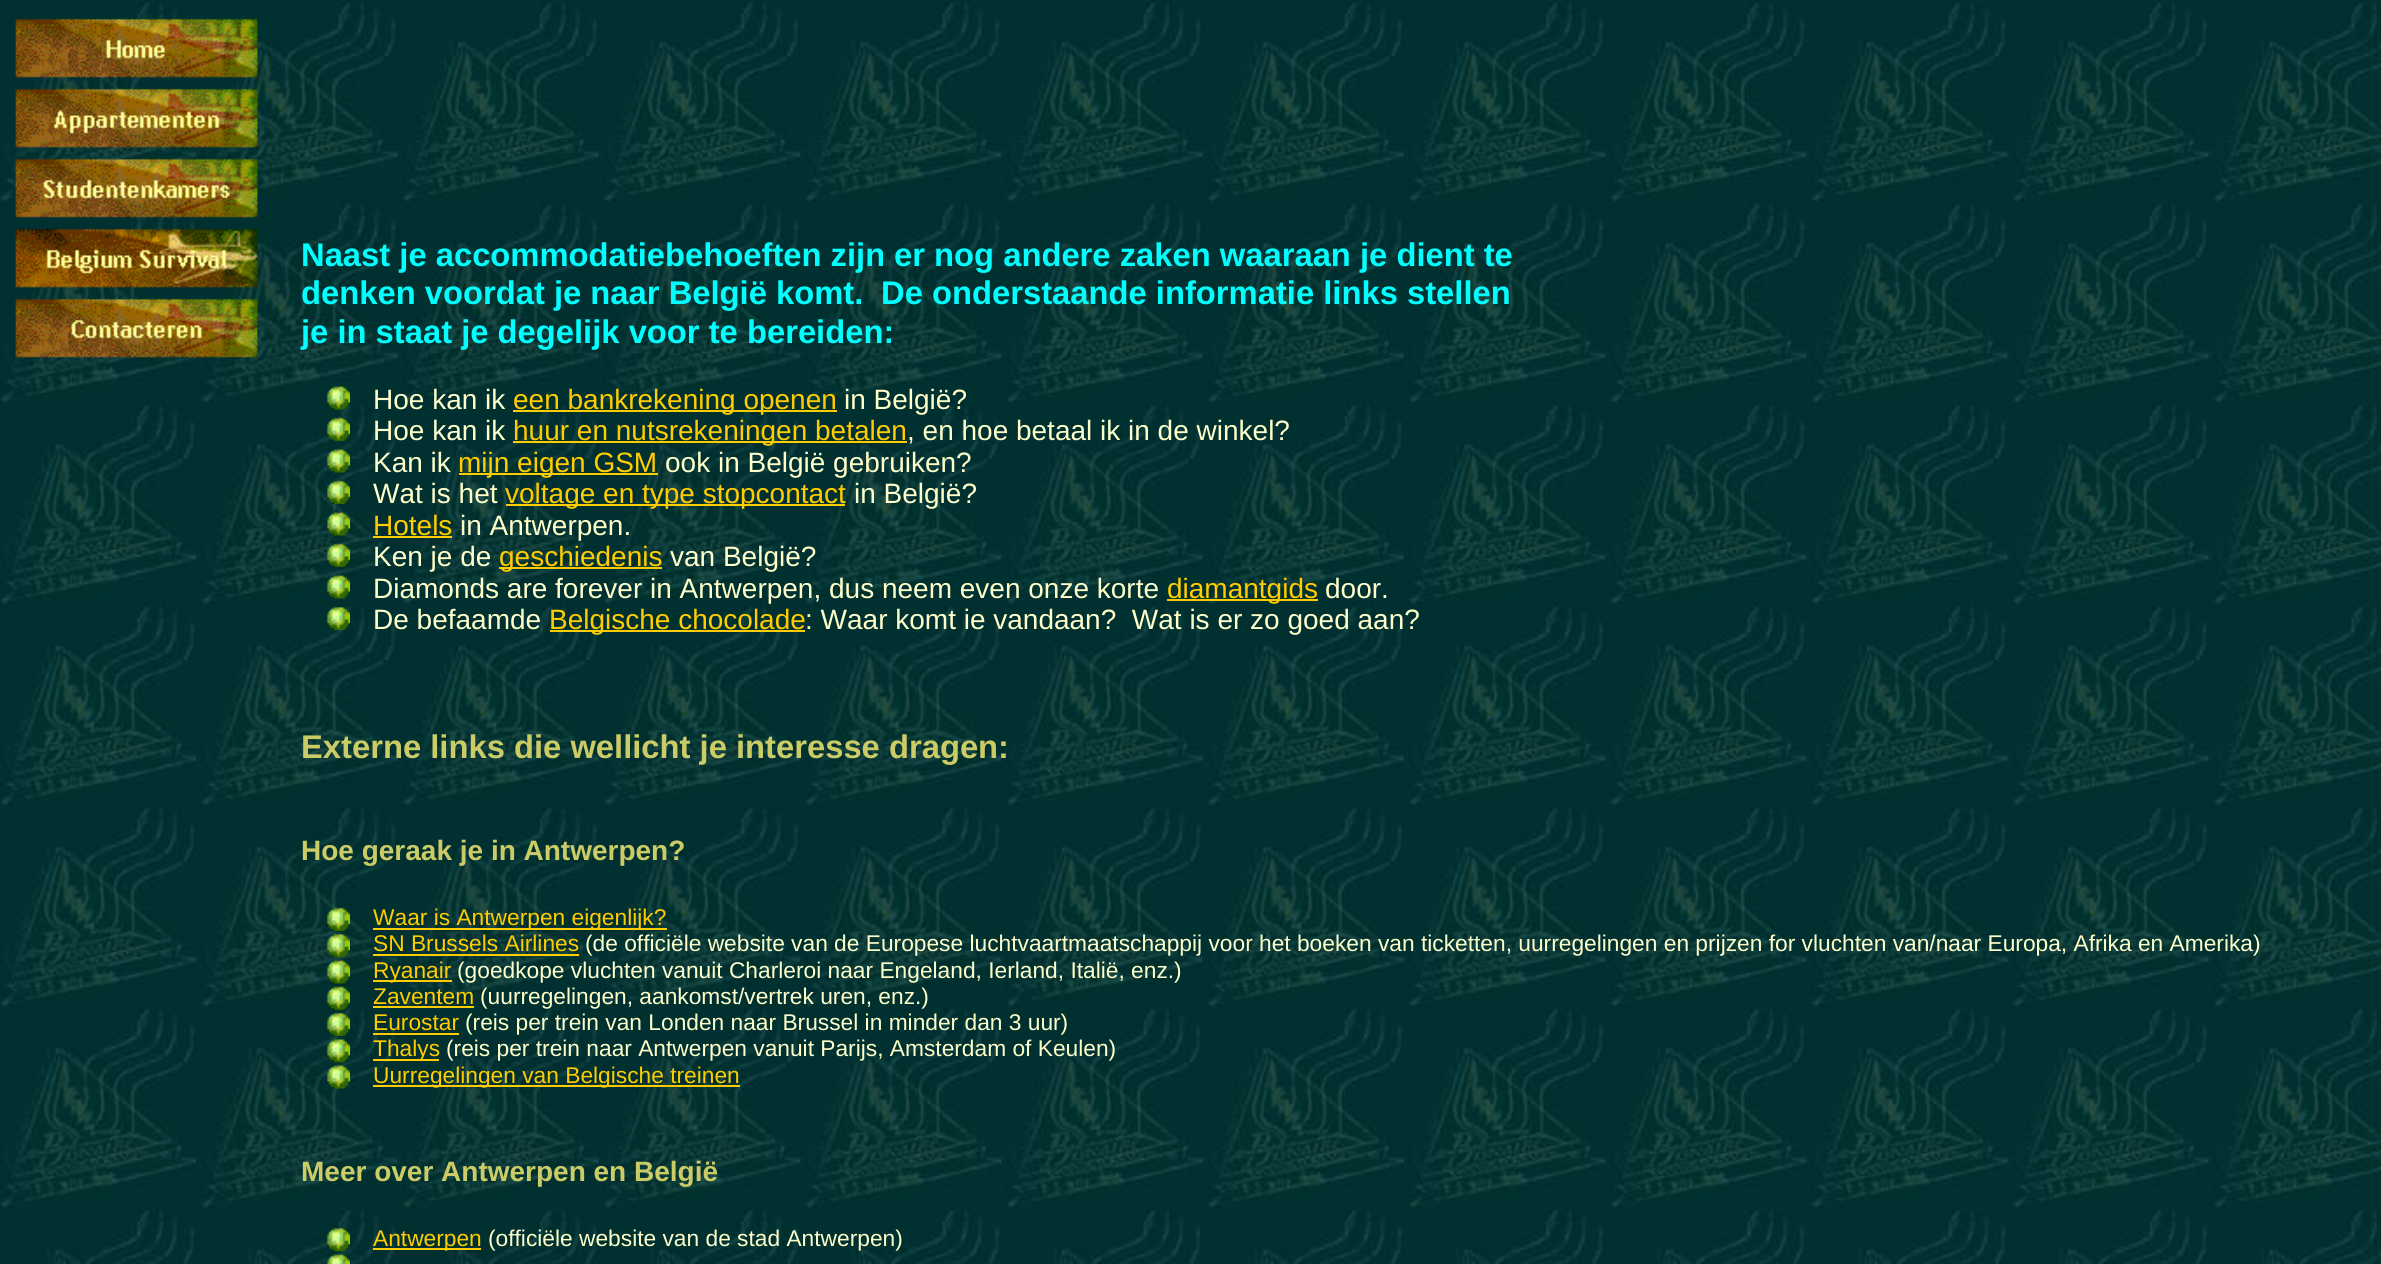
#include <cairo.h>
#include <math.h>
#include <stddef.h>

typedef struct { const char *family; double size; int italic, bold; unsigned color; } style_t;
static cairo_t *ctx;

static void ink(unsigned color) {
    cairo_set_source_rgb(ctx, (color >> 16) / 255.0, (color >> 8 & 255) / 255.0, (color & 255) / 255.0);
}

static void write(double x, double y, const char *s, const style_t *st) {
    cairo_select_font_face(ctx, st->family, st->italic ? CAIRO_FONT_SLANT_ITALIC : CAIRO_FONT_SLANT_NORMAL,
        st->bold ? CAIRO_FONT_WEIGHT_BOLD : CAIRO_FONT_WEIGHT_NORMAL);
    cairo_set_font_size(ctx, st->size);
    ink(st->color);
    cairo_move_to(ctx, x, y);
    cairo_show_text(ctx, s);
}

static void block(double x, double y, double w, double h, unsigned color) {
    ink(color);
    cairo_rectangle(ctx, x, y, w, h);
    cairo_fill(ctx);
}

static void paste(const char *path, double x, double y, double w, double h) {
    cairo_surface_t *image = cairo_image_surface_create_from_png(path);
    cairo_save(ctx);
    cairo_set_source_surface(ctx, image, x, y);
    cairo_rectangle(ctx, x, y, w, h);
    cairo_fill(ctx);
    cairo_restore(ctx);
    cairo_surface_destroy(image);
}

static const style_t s1 = {"Liberation Sans", 32.75, 0, 1, 0x00ffff};
static const style_t s2 = {"Liberation Sans", 28, 0, 0, 0xffffcc};
static const style_t s3 = {"Liberation Sans", 28, 0, 0, 0xffcc00};
static const style_t s4 = {"Liberation Sans", 32.75, 0, 1, 0xcccc66};
static const style_t s5 = {"Liberation Sans", 28, 0, 1, 0xcccc66};
static const style_t s6 = {"Liberation Sans", 22.75, 0, 0, 0xffcc00};
static const style_t s7 = {"Liberation Sans", 22.75, 0, 0, 0xffffcc};

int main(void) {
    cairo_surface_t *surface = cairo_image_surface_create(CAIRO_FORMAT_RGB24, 2381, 1264);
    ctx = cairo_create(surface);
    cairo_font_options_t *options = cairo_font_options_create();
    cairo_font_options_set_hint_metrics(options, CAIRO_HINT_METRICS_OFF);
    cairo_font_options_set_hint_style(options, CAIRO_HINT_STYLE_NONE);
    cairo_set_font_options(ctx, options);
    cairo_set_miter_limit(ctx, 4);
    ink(0xffffff);
    cairo_paint(ctx);
    paste("pic1.png", 0, 0, 2381, 1264);
    paste("pic2.png", 15, 18, 243, 60);
    paste("pic3.png", 15, 88, 243, 60);
    paste("pic4.png", 15, 158, 243, 60);
    paste("pic5.png", 15, 228, 243, 60);
    paste("pic6.png", 15, 298, 243, 60);
    write(301, 266, "Naast je accommodatiebehoeften zijn", &s1);
    write(894, 266, "er nog andere zaken waaraan je dient te", &s1);
    write(301, 304, "denken voordat je naar België komt.", &s1);
    write(881, 304, "De onderstaande informatie links stellen", &s1);
    write(301, 343, "je in staat je degelijk voor te bereiden:", &s1);
    paste("pic7.png", 326, 386, 24, 24);
    write(373, 409, "Hoe kan ik", &s2);
    block(513, 410, 324, 2, 0xffcc00);
    write(513, 409, "een bankrekening openen", &s3);
    write(844, 409, "in België?", &s2);
    paste("pic8.png", 326, 417, 24, 24);
    write(373, 440, "Hoe kan ik", &s2);
    block(513, 441, 394, 2, 0xffcc00);
    write(513, 440, "huur en nutsrekeningen betalen", &s3);
    write(907, 440, ", en hoe betaal ik in de winkel?", &s2);
    paste("pic9.png", 326, 449, 24, 24);
    write(373, 472, "Kan ik", &s2);
    block(459, 473, 199, 2, 0xffcc00);
    write(458, 472, "mijn eigen GSM", &s3);
    write(665, 472, "ook in België gebruiken?", &s2);
    paste("pic10.png", 326, 480, 24, 24);
    write(373, 503, "Wat is het", &s2);
    block(506, 504, 339, 2, 0xffcc00);
    write(505, 503, "voltage en type stopcontact", &s3);
    write(854, 503, "in België?", &s2);
    paste("pic11.png", 326, 512, 24, 24);
    write(373, 535, "Hotels", &s3);
    block(373, 536, 79, 2, 0xffcc00);
    write(460, 535, "in Antwerpen.", &s2);
    paste("pic12.png", 326, 543, 24, 24);
    write(373, 566, "Ken je de", &s2);
    block(499, 567, 163, 2, 0xffcc00);
    write(499, 566, "geschiedenis", &s3);
    write(670, 566, "van België?", &s2);
    paste("pic13.png", 326, 575, 24, 24);
    write(373, 598, "Diamonds are forever in Antwerpen, dus neem even onze korte", &s2);
    block(1167, 599, 151, 2, 0xffcc00);
    write(1167, 598, "diamantgids", &s3);
    write(1325, 598, "door.", &s2);
    paste("pic14.png", 326, 606, 24, 24);
    write(373, 629, "De befaamde", &s2);
    block(550, 630, 255, 2, 0xffcc00);
    write(549, 629, "Belgische chocolade", &s3);
    write(805, 629, ": Waar komt ie vandaan?  Wat is er zo goed aan?", &s2);
    write(301, 758, "Externe links die wellicht je interesse dragen:", &s4);
    write(301, 860, "Hoe geraak je in Antwerpen?", &s5);
    paste("pic15.png", 326, 907, 24, 24);
    block(373, 928, 294, 2, 0xffcc00);
    write(373, 925, "Waar is Antwerpen eigenlijk?", &s6);
    paste("pic16.png", 326, 934, 24, 24);
    write(373, 951, "SN Brussels Airlines", &s6);
    block(373, 954, 206, 2, 0xffcc00);
    write(585, 951, "(de officiële website van de Europese luchtvaartmaatschappij voor het boeken van ticketten, uurregelingen en prijzen for vluchten van/naar Europa, Afrika en Amerika)", &s7);
    paste("pic17.png", 326, 960, 24, 24);
    block(373, 980, 79, 2, 0xffcc00);
    write(373, 978, "Ryanair", &s6);
    write(457, 978, "(goedkope vluchten vanuit Charleroi naar Engeland, Ierland, Italië, enz.)", &s7);
    paste("pic18.png", 326, 986, 24, 24);
    write(373, 1004, "Zaventem", &s6);
    block(373, 1006, 101, 2, 0xffcc00);
    write(480, 1004, "(uurregelingen, aankomst/vertrek uren, enz.)", &s7);
    paste("pic19.png", 326, 1012, 24, 24);
    write(373, 1030, "Eurostar", &s6);
    block(373, 1033, 86, 2, 0xffcc00);
    write(465, 1030, "(reis per trein van Londen naar Brussel in minder dan 3 uur)", &s7);
    paste("pic20.png", 326, 1039, 24, 24);
    block(373, 1059, 66, 2, 0xffcc00);
    write(373, 1056, "Thalys", &s6);
    write(446, 1056, "(reis per trein naar Antwerpen vanuit Parijs, Amsterdam of Keulen)", &s7);
    paste("pic21.png", 326, 1065, 24, 24);
    block(373, 1085, 367, 2, 0xffcc00);
    write(373, 1083, "Uurregelingen van Belgische treinen", &s6);
    write(301, 1181, "Meer over Antwerpen en België", &s5);
    paste("pic22.png", 326, 1228, 24, 24);
    block(373, 1248, 108, 2, 0xffcc00);
    write(373, 1246, "Antwerpen", &s6);
    write(488, 1246, "(officiële website van de stad Antwerpen)", &s7);
    paste("pic23.png", 326, 1254, 24, 10);
    cairo_surface_write_to_png(surface, "screenshot.png");
    cairo_font_options_destroy(options);
    cairo_destroy(ctx);
    cairo_surface_destroy(surface);
    return 0;
}
